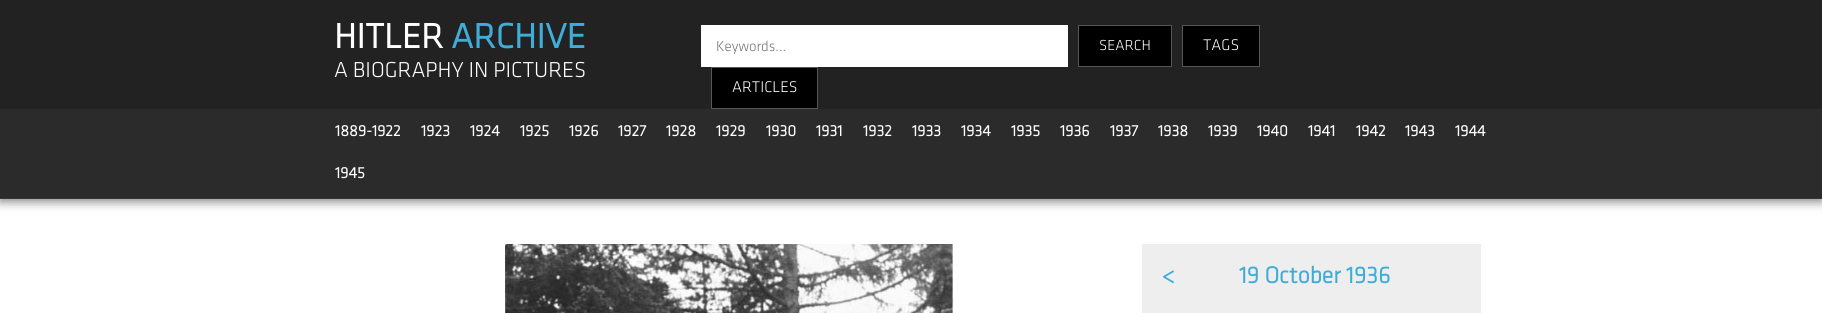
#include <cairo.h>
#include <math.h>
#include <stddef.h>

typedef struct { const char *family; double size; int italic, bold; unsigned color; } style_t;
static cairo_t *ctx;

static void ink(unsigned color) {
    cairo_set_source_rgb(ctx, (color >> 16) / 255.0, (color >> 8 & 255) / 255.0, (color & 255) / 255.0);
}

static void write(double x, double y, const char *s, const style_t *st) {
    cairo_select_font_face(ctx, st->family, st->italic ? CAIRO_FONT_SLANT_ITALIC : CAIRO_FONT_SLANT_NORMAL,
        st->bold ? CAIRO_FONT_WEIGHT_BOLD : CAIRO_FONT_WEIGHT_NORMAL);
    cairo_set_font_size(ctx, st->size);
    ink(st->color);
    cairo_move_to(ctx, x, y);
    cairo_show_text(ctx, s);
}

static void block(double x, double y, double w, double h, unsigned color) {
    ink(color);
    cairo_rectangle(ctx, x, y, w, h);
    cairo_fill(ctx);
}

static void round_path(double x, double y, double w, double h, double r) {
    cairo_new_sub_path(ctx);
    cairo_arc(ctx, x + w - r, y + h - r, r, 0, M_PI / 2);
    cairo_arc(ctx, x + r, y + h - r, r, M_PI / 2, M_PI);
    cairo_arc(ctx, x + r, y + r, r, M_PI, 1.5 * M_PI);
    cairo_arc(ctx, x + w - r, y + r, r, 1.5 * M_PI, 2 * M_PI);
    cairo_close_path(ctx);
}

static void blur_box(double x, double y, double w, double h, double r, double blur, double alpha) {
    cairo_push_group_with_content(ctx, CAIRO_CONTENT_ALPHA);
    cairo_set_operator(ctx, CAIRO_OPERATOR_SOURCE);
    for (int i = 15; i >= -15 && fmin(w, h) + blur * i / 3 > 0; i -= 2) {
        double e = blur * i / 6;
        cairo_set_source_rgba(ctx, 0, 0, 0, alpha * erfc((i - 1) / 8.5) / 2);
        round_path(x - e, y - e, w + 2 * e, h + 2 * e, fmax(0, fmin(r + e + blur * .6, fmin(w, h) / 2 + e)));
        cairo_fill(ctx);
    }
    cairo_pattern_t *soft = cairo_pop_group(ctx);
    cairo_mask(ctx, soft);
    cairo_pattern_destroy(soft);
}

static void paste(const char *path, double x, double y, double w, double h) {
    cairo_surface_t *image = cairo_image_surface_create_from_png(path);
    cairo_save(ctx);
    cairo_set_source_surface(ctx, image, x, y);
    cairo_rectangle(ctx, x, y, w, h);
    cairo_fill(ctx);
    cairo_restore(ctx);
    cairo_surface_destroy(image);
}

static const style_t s1 = {"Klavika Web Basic", 36, 0, 1, 0xffffff};
static const style_t s2 = {"Klavika Web Basic", 36, 0, 1, 0x40add9};
static const style_t s3 = {"Klavika Web Basic Light", 22.4, 0, 0, 0xffffff};
static const style_t s4 = {"Klavika Web Basic Light", 15, 0, 0, 0x757575};
static const style_t s5 = {"Klavika Web Basic Light", 15, 0, 0, 0xffffff};
static const style_t s6 = {"Klavika Web Basic Light", 16, 0, 0, 0xffffff};
static const style_t s7 = {"Klavika Web Basic", 16, 0, 1, 0xffffff};
static const style_t s8 = {"Klavika Web Basic", 24, 0, 1, 0x40add9};

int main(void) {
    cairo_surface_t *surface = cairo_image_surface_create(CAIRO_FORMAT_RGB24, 1822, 313);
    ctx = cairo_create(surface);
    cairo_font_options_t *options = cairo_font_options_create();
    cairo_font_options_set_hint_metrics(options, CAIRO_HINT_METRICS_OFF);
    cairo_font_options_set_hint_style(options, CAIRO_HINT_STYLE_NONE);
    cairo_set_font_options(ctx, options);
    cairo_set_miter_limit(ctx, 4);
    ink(0xffffff);
    cairo_paint(ctx);
    ink(0x888888);
    blur_box(0, 3, 1822, 199, 0, 5, 1);
    block(0, 0, 1822, 109, 0x222222);
    write(334, 48, "HITLER", &s1);
    write(451, 48, "ARCHIVE", &s2);
    write(334, 77, "A BIOGRAPHY IN PICTURES", &s3);
    block(701, 25, 367, 42, 0xffffff);
    write(716, 51, "Keywords...", &s4);
    ink(0x000000);
    cairo_rectangle(ctx, 1078.5, 25.5, 93, 41);
    cairo_fill_preserve(ctx);
    ink(0x565656);
    cairo_set_line_width(ctx, 1);
    cairo_stroke(ctx);
    write(1099, 50, "SEARCH", &s5);
    ink(0x000000);
    cairo_rectangle(ctx, 1182.5, 25.5, 77, 41);
    cairo_fill_preserve(ctx);
    ink(0x565656);
    cairo_stroke(ctx);
    write(1203, 50, "TAGS", &s6);
    ink(0x000000);
    cairo_rectangle(ctx, 711.5, 67.5, 106, 41);
    cairo_fill_preserve(ctx);
    ink(0x565656);
    cairo_stroke(ctx);
    write(732, 92, "ARTICLES", &s6);
    block(0, 109, 1822, 89, 0x2b2b2b);
    block(0, 198, 1822, 1, 0x363636);
    write(335, 136, "1889-1922", &s7);
    write(421, 136, "1923", &s7);
    write(470, 136, "1924", &s7);
    write(520, 136, "1925", &s7);
    write(569, 136, "1926", &s7);
    write(618, 136, "1927", &s7);
    write(666, 136, "1928", &s7);
    write(716, 136, "1929", &s7);
    write(766, 136, "1930", &s7);
    write(816, 136, "1931", &s7);
    write(863, 136, "1932", &s7);
    write(912, 136, "1933", &s7);
    write(961, 136, "1934", &s7);
    write(1011, 136, "1935", &s7);
    write(1060, 136, "1936", &s7);
    write(1110, 136, "1937", &s7);
    write(1158, 136, "1938", &s7);
    write(1208, 136, "1939", &s7);
    write(1257, 136, "1940", &s7);
    write(1308, 136, "1941", &s7);
    write(1356, 136, "1942", &s7);
    write(1405, 136, "1943", &s7);
    write(1455, 136, "1944", &s7);
    write(335, 178, "1945", &s7);
    paste("pic1.png", 505, 244, 449, 69);
    cairo_rectangle(ctx, 1143, 245, 337, 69);
    ink(0xeeeeee);
    cairo_set_line_width(ctx, 2);
    cairo_stroke(ctx);
    block(1144, 246, 335, 67, 0xeeeeee);
    write(1162, 283, "<", &s8);
    write(1239, 283, "19 October 1936", &s8);
    cairo_surface_write_to_png(surface, "screenshot.png");
    cairo_font_options_destroy(options);
    cairo_destroy(ctx);
    cairo_surface_destroy(surface);
    return 0;
}
